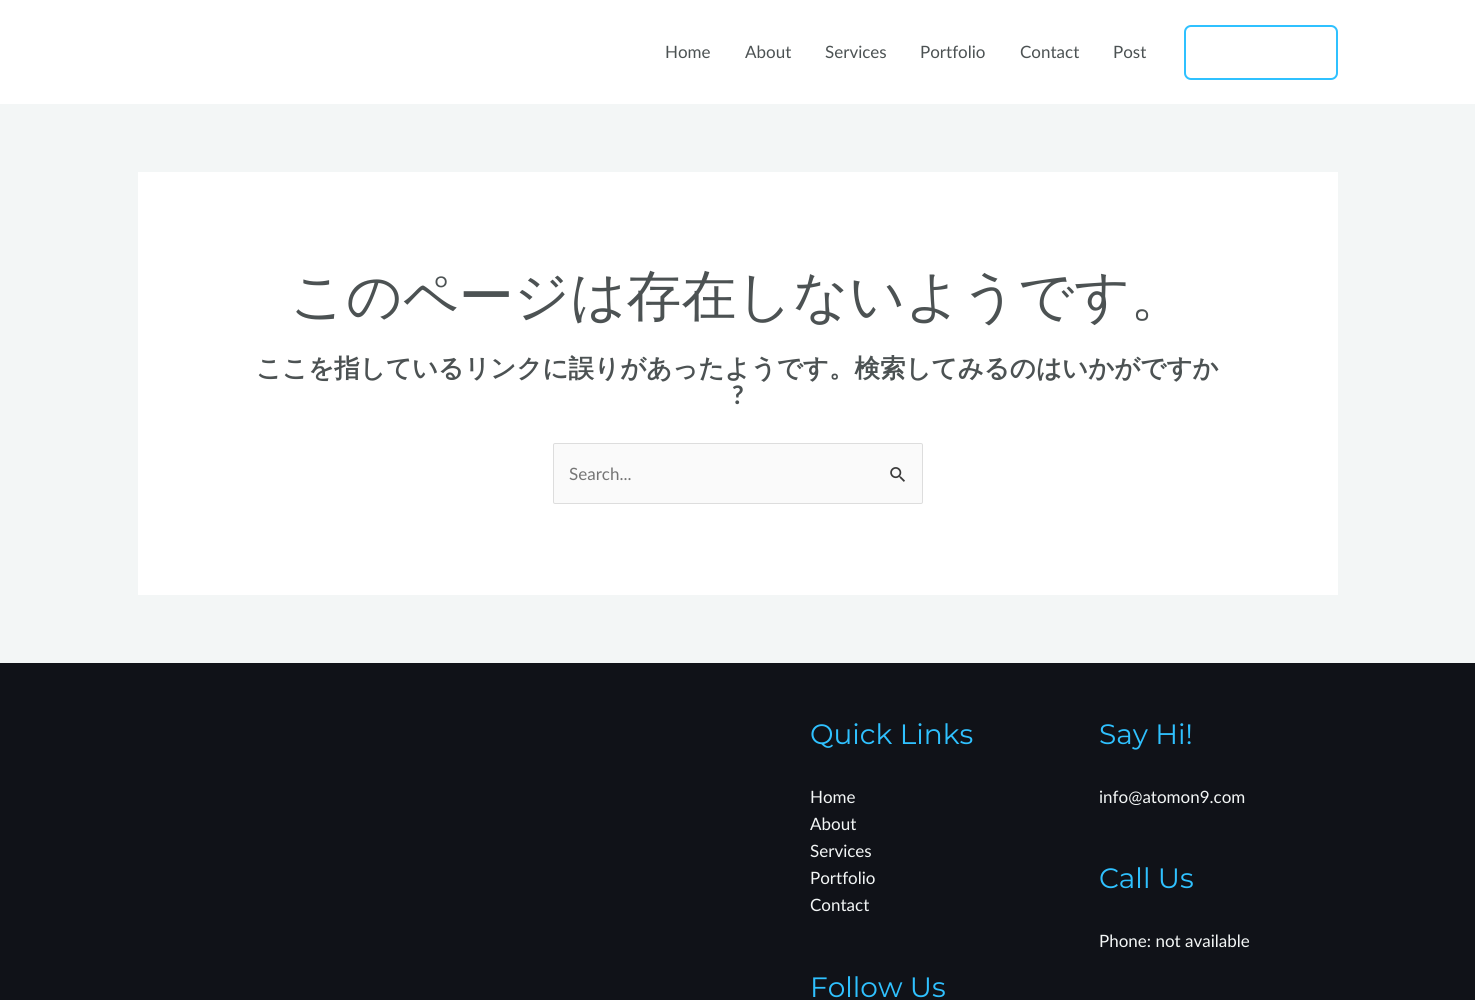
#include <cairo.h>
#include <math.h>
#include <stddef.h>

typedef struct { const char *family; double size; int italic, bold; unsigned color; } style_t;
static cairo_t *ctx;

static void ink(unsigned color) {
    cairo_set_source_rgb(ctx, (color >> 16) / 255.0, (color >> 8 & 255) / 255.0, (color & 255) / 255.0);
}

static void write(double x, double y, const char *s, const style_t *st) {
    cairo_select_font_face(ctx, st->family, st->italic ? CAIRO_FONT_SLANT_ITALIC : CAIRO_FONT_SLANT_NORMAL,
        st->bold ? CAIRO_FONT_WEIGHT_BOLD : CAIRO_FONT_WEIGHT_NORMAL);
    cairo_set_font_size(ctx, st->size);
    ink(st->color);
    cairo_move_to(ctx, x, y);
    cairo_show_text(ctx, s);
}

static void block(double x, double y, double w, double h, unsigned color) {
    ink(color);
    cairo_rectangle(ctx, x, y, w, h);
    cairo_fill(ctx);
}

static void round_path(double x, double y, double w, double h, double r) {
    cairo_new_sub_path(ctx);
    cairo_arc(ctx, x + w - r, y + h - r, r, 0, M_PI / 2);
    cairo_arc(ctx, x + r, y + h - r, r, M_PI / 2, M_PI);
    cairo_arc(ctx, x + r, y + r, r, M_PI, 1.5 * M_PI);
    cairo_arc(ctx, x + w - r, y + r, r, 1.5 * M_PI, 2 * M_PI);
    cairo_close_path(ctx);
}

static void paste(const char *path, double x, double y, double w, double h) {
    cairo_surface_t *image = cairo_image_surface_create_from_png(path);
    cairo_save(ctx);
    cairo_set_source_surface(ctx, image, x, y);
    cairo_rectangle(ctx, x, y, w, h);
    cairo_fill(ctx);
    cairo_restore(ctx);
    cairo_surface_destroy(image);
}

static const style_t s1 = {"Lato", 17, 0, 0, 0x4c5253};
static const style_t s2 = {"WenQuanYi Zen Hei Medium", 55, 0, 0, 0x4c5253};
static const style_t s3 = {"WenQuanYi Zen Hei", 25.5, 0, 1, 0x4c5253};
static const style_t s4 = {"Lato", 25.5, 0, 1, 0x4c5253};
static const style_t s5 = {"Lato", 17, 0, 0, 0x757575};
static const style_t s6 = {"Montserrat", 28, 0, 0, 0x2fc1ff};
static const style_t s7 = {"Lato", 17, 0, 0, 0xf3f6f6};

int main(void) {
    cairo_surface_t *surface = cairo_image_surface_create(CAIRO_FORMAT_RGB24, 1475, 1000);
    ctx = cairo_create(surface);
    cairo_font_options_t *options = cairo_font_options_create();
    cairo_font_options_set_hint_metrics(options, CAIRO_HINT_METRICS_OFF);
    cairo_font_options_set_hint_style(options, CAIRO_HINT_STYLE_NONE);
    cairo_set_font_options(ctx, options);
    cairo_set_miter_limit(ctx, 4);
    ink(0xf3f6f6);
    cairo_paint(ctx);
    block(0, 0, 1475, 104, 0xffffff);
    write(665, 58, "Home", &s1);
    write(745, 58, "About", &s1);
    write(825, 58, "Services", &s1);
    write(920, 58, "Portfolio", &s1);
    write(1020, 58, "Contact", &s1);
    write(1113, 58, "Post", &s1);
    round_path(1185, 26, 152, 53, 6);
    ink(0x2fc1ff);
    cairo_stroke(ctx);
    block(138, 172, 1200, 423, 0xffffff);
    write(290, 315, "このページは存在しないようです。", &s2);
    write(256, 377, "ここを指しているリンクに誤りがあったようです。検索してみるのはいかがですか", &s3);
    write(732, 404, "?", &s4);
    ink(0xfafafa);
    round_path(553.5, 443.5, 369, 60, 1.5);
    cairo_fill_preserve(ctx);
    ink(0xdddddd);
    cairo_set_line_width(ctx, 1);
    cairo_stroke(ctx);
    write(569, 480, "Search...", &s5);
    paste("pic1.png", 890, 467, 15, 15);
    block(0, 663, 1475, 337, 0x101218);
    write(810, 744, "Quick Links", &s6);
    write(810, 803, "Home", &s7);
    write(810, 830, "About", &s7);
    write(810, 857, "Services", &s7);
    write(810, 884, "Portfolio", &s7);
    write(810, 911, "Contact", &s7);
    write(810, 997, "Follow Us", &s6);
    write(1099, 744, "Say Hi!", &s6);
    write(1099, 803, "info@atomon9.com", &s7);
    write(1099, 888, "Call Us", &s6);
    write(1099, 947, "Phone: not available", &s7);
    cairo_surface_write_to_png(surface, "screenshot.png");
    cairo_font_options_destroy(options);
    cairo_destroy(ctx);
    cairo_surface_destroy(surface);
    return 0;
}
